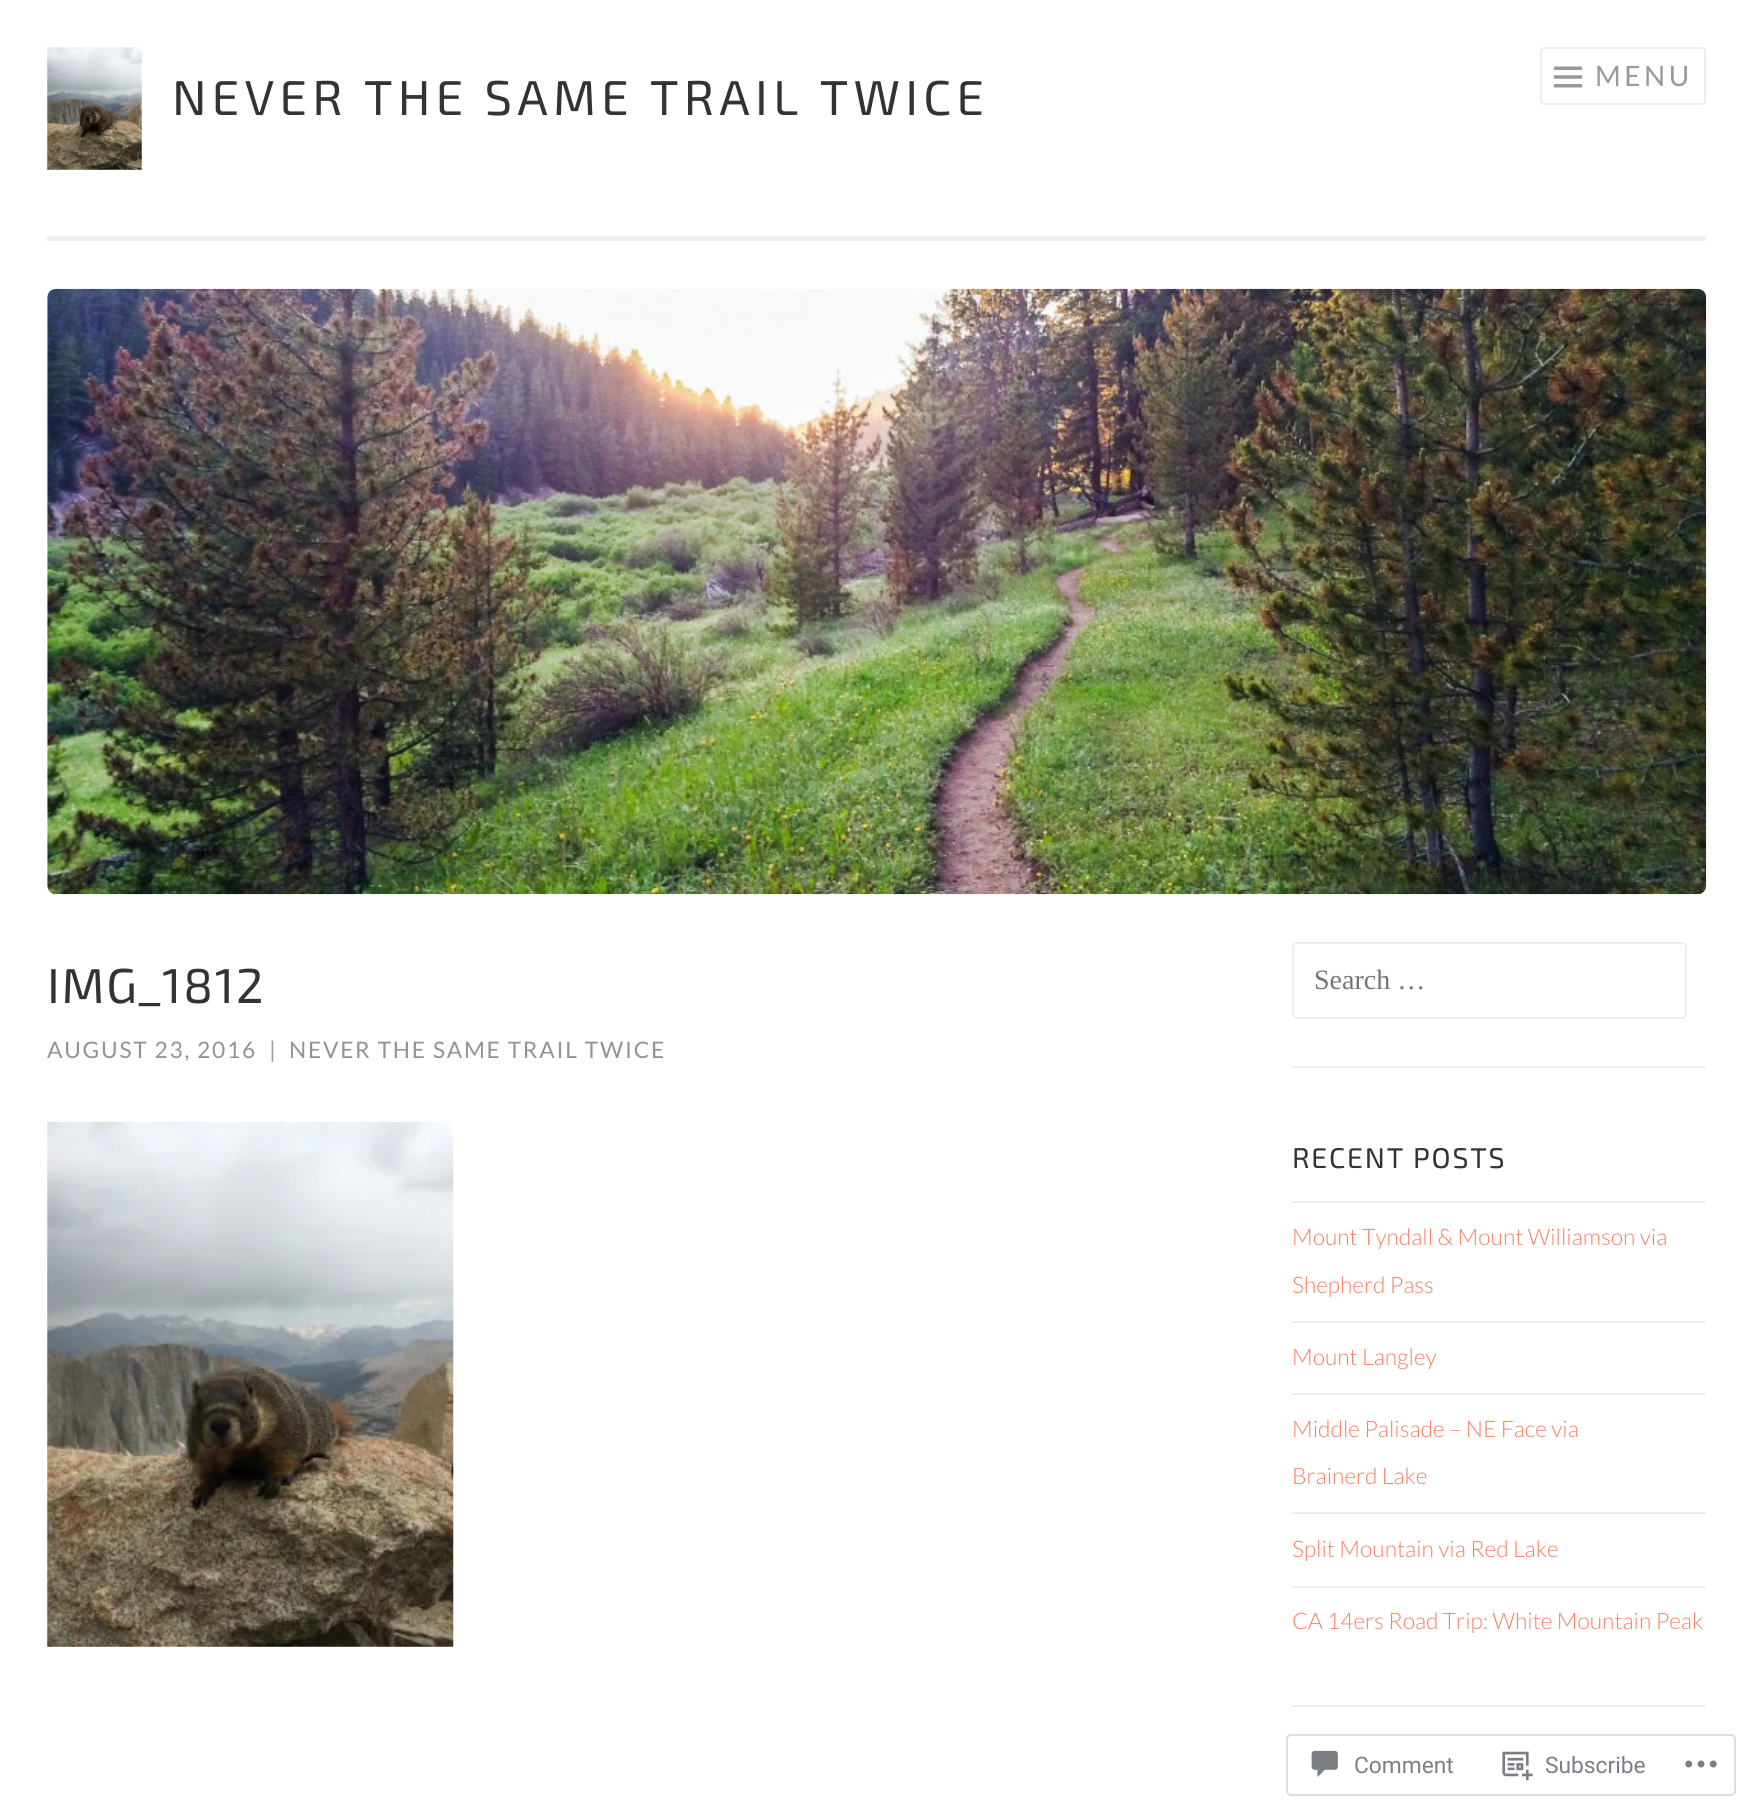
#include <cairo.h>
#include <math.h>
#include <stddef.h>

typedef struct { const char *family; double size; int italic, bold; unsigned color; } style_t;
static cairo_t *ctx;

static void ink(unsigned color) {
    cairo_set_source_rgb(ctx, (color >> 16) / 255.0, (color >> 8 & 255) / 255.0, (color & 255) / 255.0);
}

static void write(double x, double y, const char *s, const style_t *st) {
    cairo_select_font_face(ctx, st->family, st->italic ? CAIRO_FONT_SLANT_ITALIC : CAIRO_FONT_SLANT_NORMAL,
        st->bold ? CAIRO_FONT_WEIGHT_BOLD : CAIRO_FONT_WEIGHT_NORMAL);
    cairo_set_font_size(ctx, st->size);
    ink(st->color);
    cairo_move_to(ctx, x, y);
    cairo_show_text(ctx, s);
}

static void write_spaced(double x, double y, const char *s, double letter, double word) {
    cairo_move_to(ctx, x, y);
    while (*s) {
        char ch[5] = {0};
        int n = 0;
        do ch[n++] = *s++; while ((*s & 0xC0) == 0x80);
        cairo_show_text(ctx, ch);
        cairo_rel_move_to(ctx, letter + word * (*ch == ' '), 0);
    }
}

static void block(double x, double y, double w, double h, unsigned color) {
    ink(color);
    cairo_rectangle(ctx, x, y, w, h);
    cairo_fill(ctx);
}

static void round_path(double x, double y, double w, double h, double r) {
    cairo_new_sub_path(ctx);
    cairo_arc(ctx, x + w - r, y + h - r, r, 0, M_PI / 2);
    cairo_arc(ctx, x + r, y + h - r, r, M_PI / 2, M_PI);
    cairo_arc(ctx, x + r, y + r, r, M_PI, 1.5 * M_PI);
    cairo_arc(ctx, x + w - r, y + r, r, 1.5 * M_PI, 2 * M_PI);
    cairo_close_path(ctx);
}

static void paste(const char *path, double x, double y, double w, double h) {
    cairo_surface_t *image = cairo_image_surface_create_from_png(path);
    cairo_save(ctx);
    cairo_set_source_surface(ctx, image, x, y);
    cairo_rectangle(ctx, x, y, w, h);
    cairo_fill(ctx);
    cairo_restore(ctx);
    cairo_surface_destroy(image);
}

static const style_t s1 = {"Liberation Serif", 28, 0, 0, 0x757575};
static const style_t s2 = {"Lato Light", 22.75, 0, 0, 0xf68060};
static const style_t s3 = {"Roboto", 22.75, 0, 0, 0x7b7f85};

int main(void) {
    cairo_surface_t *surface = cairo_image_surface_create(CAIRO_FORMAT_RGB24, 1752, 1812);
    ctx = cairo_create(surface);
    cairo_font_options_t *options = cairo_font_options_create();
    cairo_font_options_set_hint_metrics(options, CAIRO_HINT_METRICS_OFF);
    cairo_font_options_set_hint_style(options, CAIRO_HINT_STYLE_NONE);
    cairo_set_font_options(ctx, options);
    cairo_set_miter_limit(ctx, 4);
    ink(0xffffff);
    cairo_paint(ctx);
    block(47, 236, 1659, 5, 0xeeeeee);
    round_path(1541, 48, 164, 56, 4);
    cairo_stroke(ctx);
    paste("pic1.png", 1554, 66, 28, 22);
    cairo_select_font_face(ctx, "Lato", CAIRO_FONT_SLANT_NORMAL, CAIRO_FONT_WEIGHT_NORMAL);
    cairo_set_font_size(ctx, 28);
    ink(0x999999);
    write_spaced(1595, 86, "MENU", 3.5, 0);
    paste("pic2.png", 47, 47, 95, 123);
    cairo_select_font_face(ctx, "Exo 2", CAIRO_FONT_SLANT_NORMAL, CAIRO_FONT_WEIGHT_NORMAL);
    cairo_set_font_size(ctx, 49);
    ink(0x333333);
    write_spaced(172, 115, "NEVER THE SAME TRAIL TWICE", 5.25, 0);
    paste("pic3.png", 47, 288, 1660, 607);
    write_spaced(47, 1003, "IMG_1812", 1.75, 0);
    cairo_select_font_face(ctx, "Lato", CAIRO_FONT_SLANT_NORMAL, CAIRO_FONT_WEIGHT_NORMAL);
    cairo_set_font_size(ctx, 22.75);
    ink(0x939393);
    write_spaced(47, 1058, "AUGUST 23, 2016", 1.75, 0);
    ink(0x999999);
    write_spaced(269, 1058, "|", 1.75, 0);
    ink(0x939393);
    write_spaced(289, 1058, "NEVER THE SAME TRAIL TWICE", 1.75, 0);
    paste("pic4.png", 47, 1121, 407, 526);
    block(1292, 1066, 414, 2, 0xeeeeee);
    round_path(1293, 943, 393, 75, 4);
    cairo_stroke(ctx);
    write(1314, 989, "Search …", &s1);
    block(1292, 1705, 414, 2, 0xeeeeee);
    cairo_select_font_face(ctx, "Exo 2", CAIRO_FONT_SLANT_NORMAL, CAIRO_FONT_WEIGHT_NORMAL);
    cairo_set_font_size(ctx, 28.5);
    ink(0x333333);
    write_spaced(1292, 1168, "RECENT POSTS", 1.75, 0);
    block(1292, 1201, 414, 2, 0xeeeeee);
    write(1292, 1245, "Mount Tyndall & Mount Williamson via", &s2);
    write(1292, 1293, "Shepherd Pass", &s2);
    block(1292, 1321, 414, 2, 0xeeeeee);
    write(1292, 1365, "Mount Langley", &s2);
    block(1292, 1393, 414, 2, 0xeeeeee);
    write(1292, 1437, "Middle Palisade – NE Face via", &s2);
    write(1292, 1484, "Brainerd Lake", &s2);
    block(1292, 1512, 414, 2, 0xeeeeee);
    write(1292, 1557, "Split Mountain via Red Lake", &s2);
    block(1292, 1586, 414, 2, 0xeeeeee);
    write(1292, 1629, "CA 14ers Road Trip: White Mountain Peak", &s2);
    round_path(1287, 1735, 448, 60, 4);
    cairo_set_source_rgba(ctx, 0.863, 0.863, 0.871, 0.98);
    cairo_stroke(ctx);
    paste("pic5.png", 1311, 1750, 27, 27);
    write(1354, 1773, "Comment", &s3);
    paste("pic6.png", 1502, 1751, 31, 30);
    write(1545, 1773, "Subscribe", &s3);
    paste("pic7.png", 1685, 1760, 32, 8);
    cairo_surface_write_to_png(surface, "screenshot.png");
    cairo_font_options_destroy(options);
    cairo_destroy(ctx);
    cairo_surface_destroy(surface);
    return 0;
}
